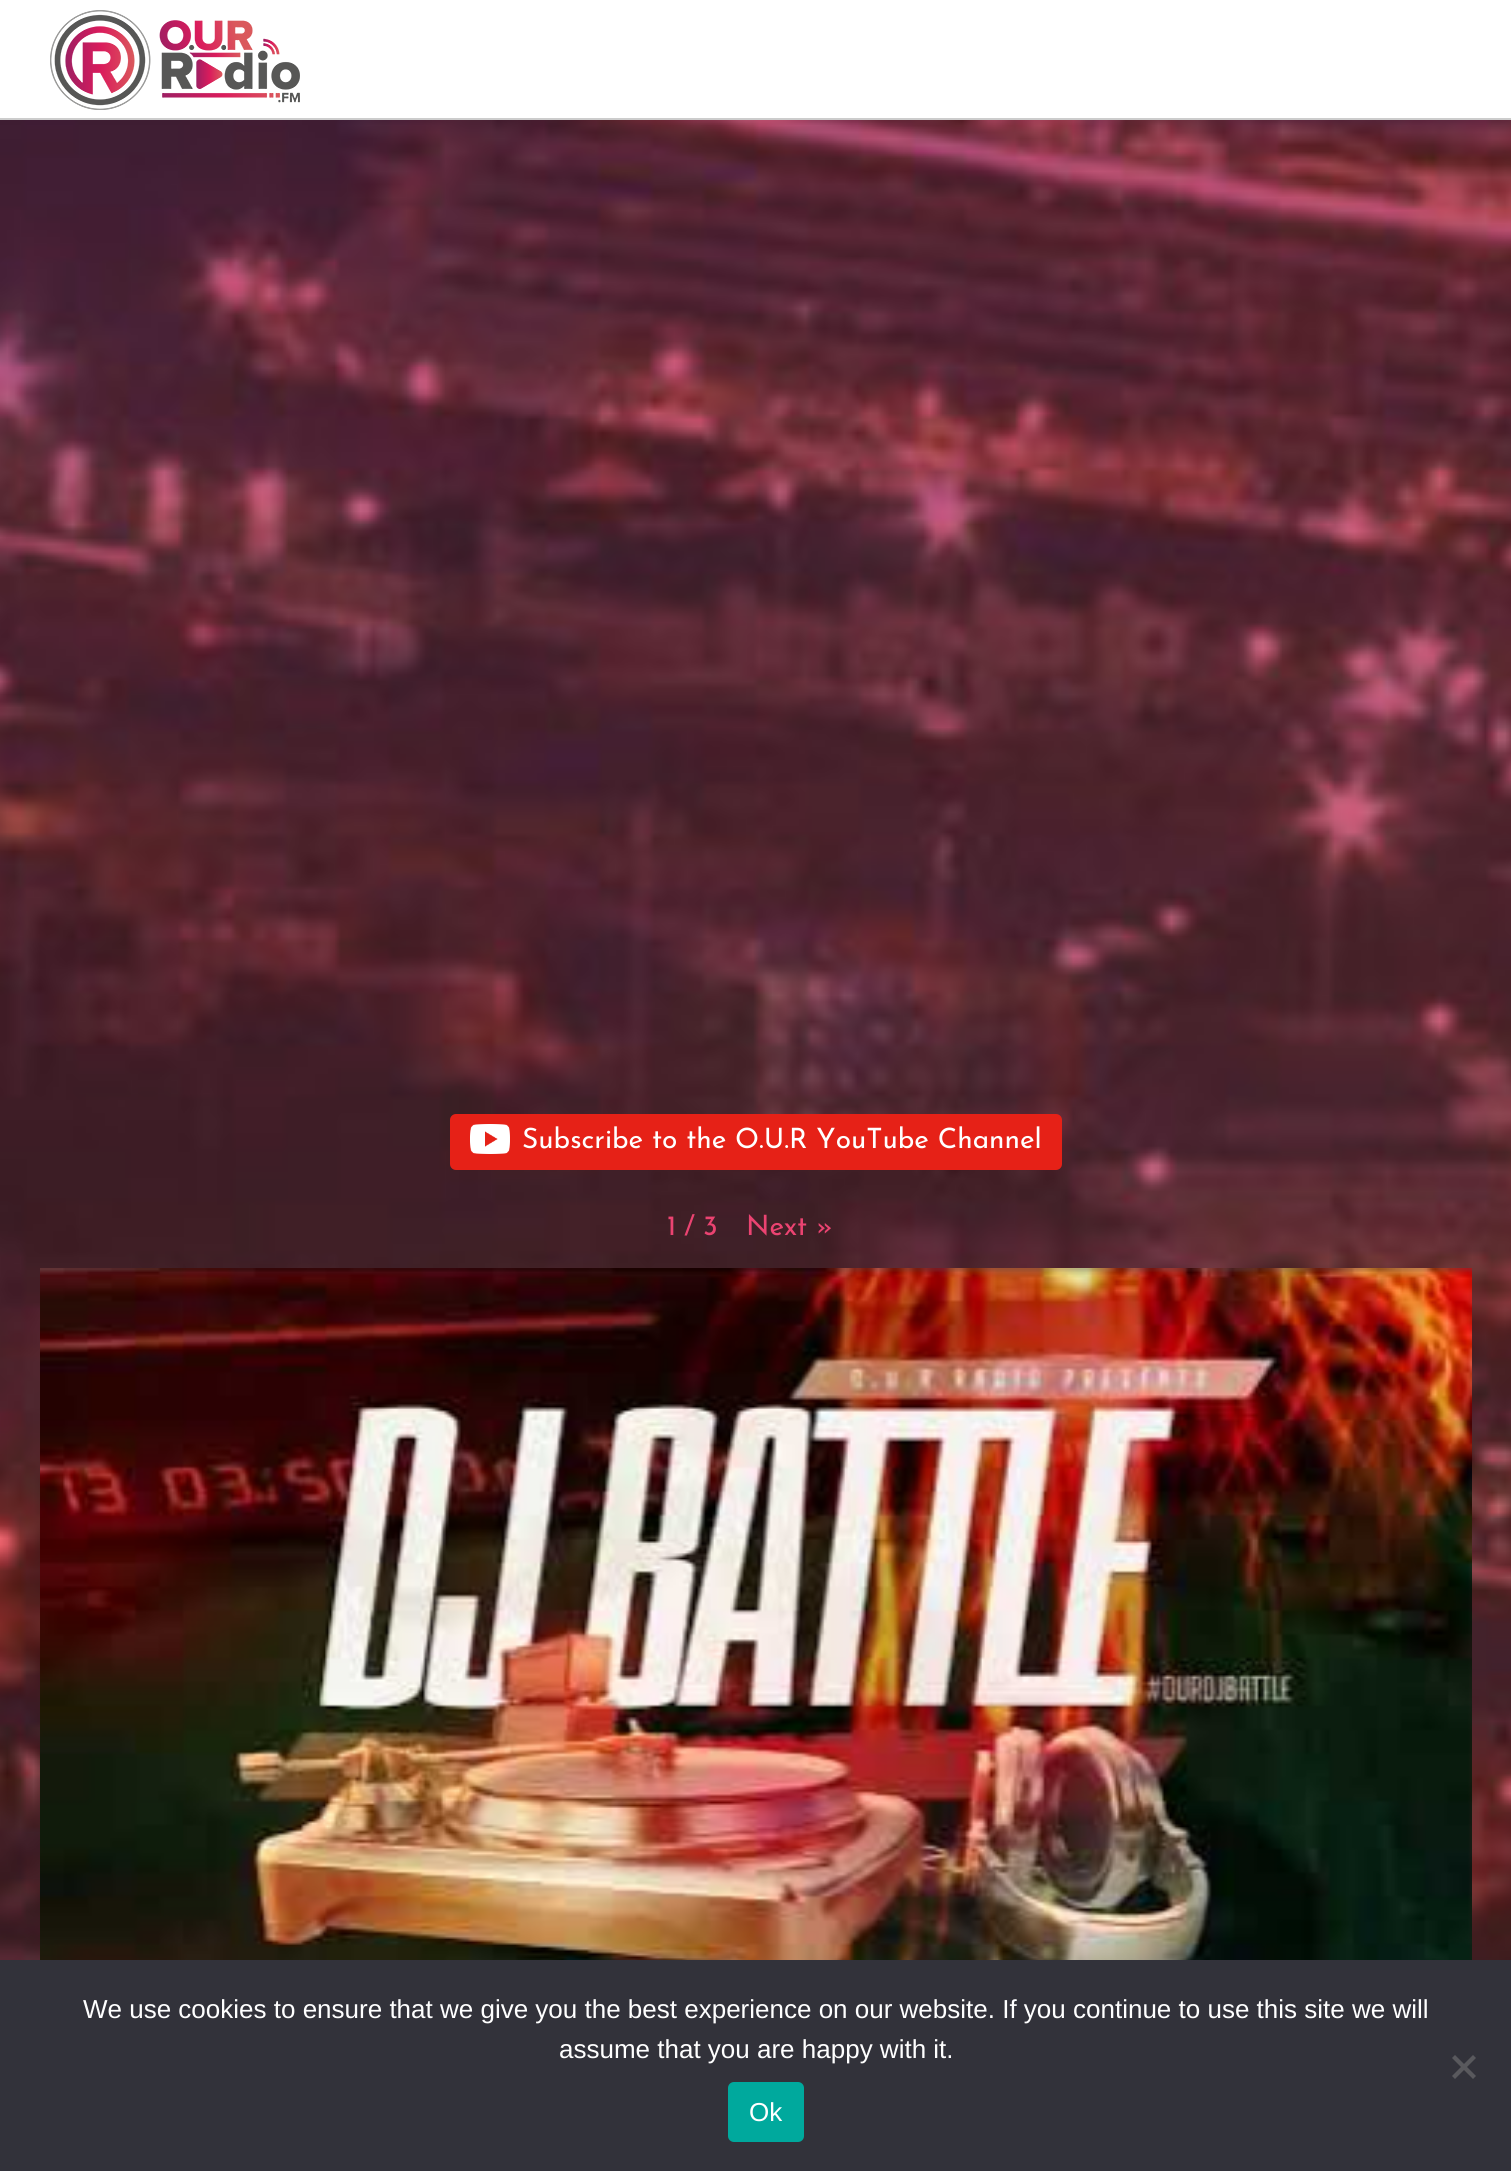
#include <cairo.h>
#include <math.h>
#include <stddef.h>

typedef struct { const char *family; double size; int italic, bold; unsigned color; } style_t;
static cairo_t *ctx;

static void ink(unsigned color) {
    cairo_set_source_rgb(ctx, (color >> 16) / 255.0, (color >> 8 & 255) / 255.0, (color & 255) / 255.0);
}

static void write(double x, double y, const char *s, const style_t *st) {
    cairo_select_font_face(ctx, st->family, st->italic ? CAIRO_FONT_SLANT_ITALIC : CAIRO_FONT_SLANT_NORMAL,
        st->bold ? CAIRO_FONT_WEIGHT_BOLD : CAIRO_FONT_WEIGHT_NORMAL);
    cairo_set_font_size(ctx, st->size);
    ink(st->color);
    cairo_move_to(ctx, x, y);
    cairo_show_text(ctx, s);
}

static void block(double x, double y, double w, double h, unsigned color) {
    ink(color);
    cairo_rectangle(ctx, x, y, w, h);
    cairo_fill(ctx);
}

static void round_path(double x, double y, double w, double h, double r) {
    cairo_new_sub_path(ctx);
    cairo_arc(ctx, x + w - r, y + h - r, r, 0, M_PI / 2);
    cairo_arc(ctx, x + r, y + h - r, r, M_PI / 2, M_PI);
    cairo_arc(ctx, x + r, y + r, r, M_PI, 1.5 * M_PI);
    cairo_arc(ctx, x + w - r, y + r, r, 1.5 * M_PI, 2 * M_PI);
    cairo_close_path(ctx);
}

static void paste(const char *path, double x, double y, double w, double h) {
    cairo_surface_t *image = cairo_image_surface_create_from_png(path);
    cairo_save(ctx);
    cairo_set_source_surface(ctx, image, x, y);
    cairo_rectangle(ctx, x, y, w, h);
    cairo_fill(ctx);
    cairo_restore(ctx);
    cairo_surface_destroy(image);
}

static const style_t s1 = {"Josefin Sans", 28, 0, 0, 0xffffff};
static const style_t s2 = {"Josefin Sans", 28, 0, 0, 0xeb4371};
static const style_t s3 = {"Liberation Sans", 26, 0, 0, 0xffffff};

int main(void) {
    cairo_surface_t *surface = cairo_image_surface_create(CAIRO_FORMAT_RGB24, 1511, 2171);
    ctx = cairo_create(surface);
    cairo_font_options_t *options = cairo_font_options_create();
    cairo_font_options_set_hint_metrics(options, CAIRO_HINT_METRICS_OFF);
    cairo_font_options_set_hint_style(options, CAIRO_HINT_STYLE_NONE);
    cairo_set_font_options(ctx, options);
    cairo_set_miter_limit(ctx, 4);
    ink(0xffffff);
    cairo_paint(ctx);
    paste("pic1.png", 50, 10, 250, 100);
    block(0, 118, 1511, 2, 0xcccccc);
    paste("pic2.png", 0, 120, 1511, 1840);
    ink(0xe62117);
    round_path(450, 1114, 612, 56, 6);
    cairo_fill(ctx);
    paste("pic3.png", 470, 1124, 40, 30);
    write(522, 1148, "Subscribe to the O.U.R YouTube Channel", &s1);
    write(667, 1235, "1", &s2);
    write(684, 1235, "/", &s2);
    write(703, 1235, "3", &s2);
    write(746, 1235, "Next »", &s2);
    paste("pic4.png", 40, 1268, 1432, 692);
    block(0, 1960, 1511, 211, 0x32323a);
    write(83, 2018, "We use cookies to ensure that we give you the best experience on our website. If you continue to use this site we will", &s3);
    write(559, 2058, "assume that you are happy with it.", &s3);
    ink(0x59595d);
    cairo_new_path(ctx);
    cairo_move_to(ctx, 1473, 2055);
    cairo_line_to(ctx, 1476, 2058);
    cairo_line_to(ctx, 1455, 2079);
    cairo_line_to(ctx, 1452, 2076);
    cairo_close_path(ctx);
    cairo_fill(ctx);
    cairo_new_path(ctx);
    cairo_move_to(ctx, 1452, 2058);
    cairo_line_to(ctx, 1455, 2055);
    cairo_line_to(ctx, 1476, 2076);
    cairo_line_to(ctx, 1473, 2079);
    cairo_close_path(ctx);
    cairo_fill(ctx);
    ink(0x00a99d);
    round_path(728, 2082, 76, 60, 6);
    cairo_fill(ctx);
    write(749, 2121, "Ok", &s3);
    cairo_surface_write_to_png(surface, "screenshot.png");
    cairo_font_options_destroy(options);
    cairo_destroy(ctx);
    cairo_surface_destroy(surface);
    return 0;
}
